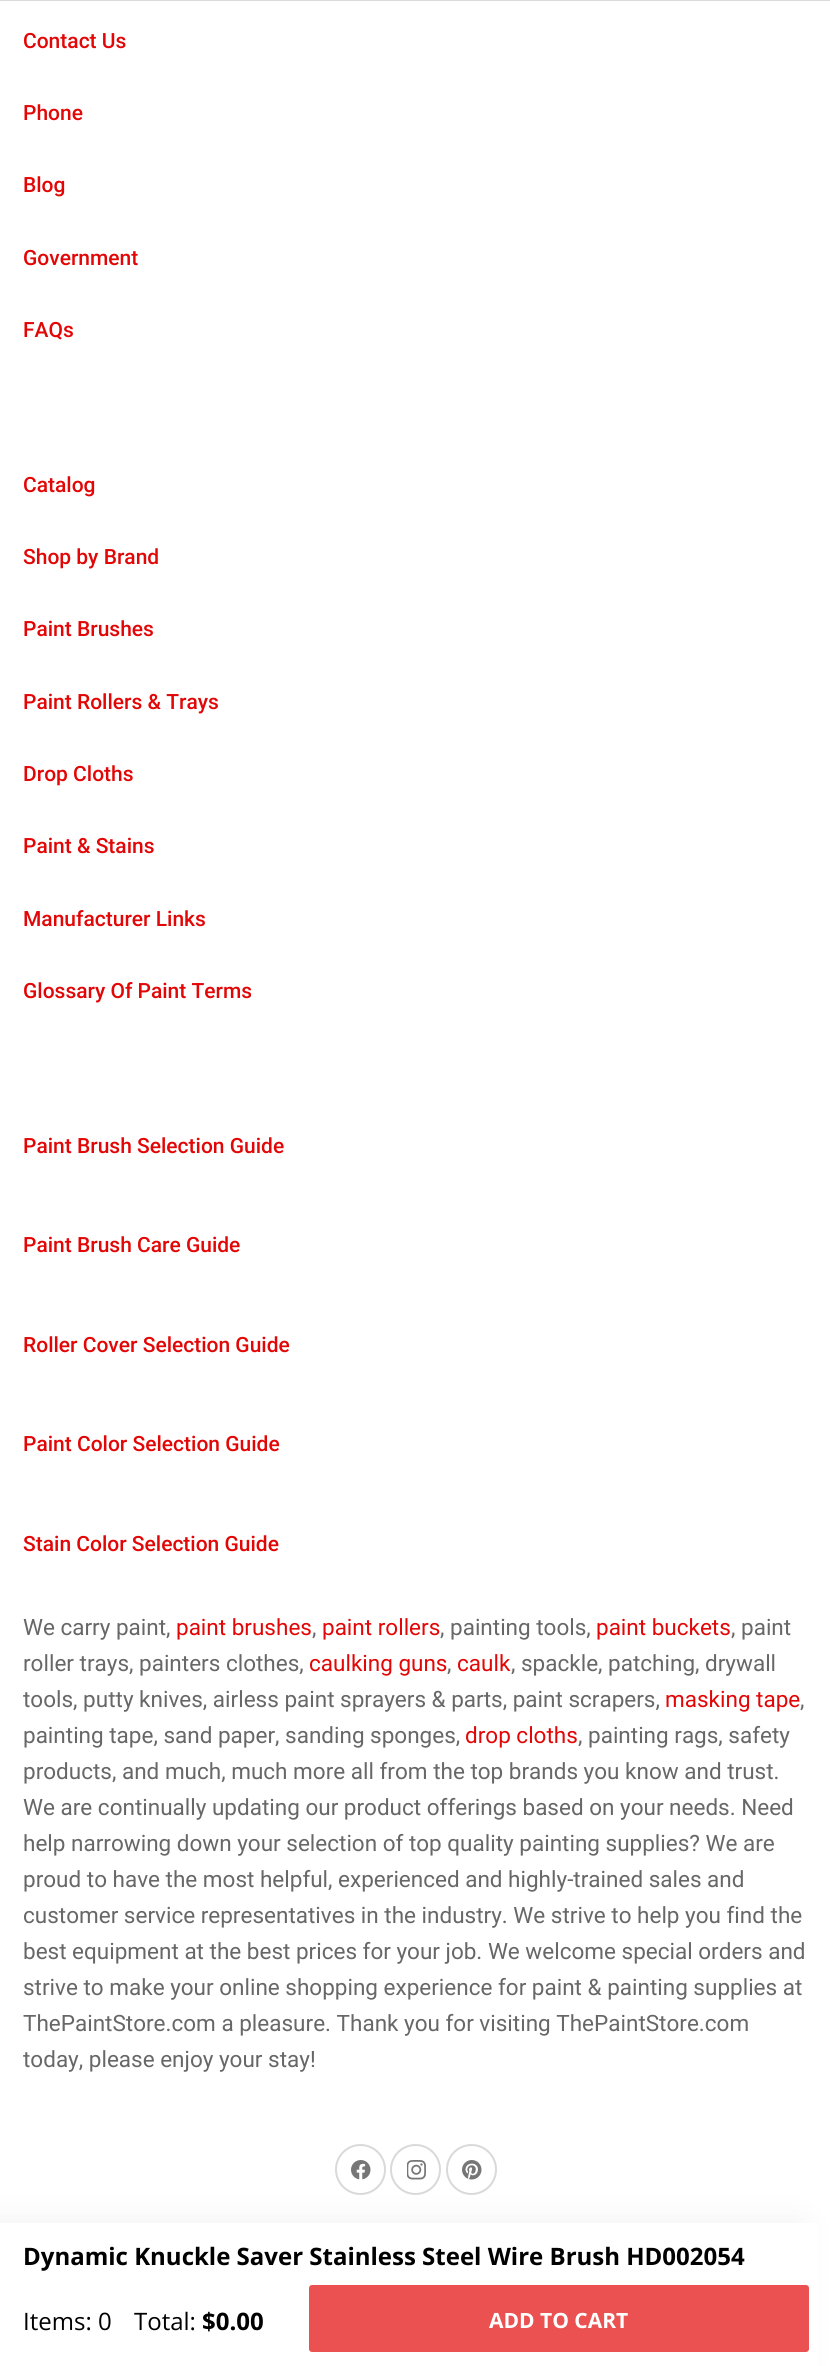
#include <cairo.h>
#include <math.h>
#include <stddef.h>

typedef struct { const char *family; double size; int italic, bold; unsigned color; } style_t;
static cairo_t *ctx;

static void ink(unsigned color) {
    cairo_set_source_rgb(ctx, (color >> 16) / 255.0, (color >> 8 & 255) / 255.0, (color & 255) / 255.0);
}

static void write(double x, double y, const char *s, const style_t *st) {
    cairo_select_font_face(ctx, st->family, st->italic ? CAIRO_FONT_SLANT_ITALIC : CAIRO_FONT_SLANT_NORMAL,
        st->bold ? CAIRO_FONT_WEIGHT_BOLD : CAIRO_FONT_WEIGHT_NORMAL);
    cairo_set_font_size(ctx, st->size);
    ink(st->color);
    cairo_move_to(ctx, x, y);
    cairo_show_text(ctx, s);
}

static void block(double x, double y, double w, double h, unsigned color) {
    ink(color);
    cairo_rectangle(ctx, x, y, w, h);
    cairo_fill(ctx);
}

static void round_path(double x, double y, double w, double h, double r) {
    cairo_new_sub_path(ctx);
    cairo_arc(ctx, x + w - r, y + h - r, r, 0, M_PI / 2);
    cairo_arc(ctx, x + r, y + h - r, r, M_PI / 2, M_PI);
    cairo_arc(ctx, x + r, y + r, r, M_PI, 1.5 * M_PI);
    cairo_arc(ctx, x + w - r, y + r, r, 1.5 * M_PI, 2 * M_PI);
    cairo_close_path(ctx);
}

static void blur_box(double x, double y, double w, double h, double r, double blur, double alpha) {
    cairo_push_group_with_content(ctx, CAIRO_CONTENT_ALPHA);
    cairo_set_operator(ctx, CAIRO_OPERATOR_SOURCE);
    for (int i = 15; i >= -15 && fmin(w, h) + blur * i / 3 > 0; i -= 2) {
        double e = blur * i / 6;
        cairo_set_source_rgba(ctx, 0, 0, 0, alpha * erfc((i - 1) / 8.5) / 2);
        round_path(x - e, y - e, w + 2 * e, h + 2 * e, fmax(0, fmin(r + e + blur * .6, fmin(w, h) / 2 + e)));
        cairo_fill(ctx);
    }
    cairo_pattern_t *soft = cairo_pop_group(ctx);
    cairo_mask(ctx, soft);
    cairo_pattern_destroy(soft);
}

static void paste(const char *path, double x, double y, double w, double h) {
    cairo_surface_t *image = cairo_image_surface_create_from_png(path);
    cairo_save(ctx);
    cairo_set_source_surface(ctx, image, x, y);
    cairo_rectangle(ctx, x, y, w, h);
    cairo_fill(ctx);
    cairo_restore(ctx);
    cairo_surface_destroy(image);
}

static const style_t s1 = {"Roboto Medium", 21, 0, 0, 0xe20606};
static const style_t s2 = {"Roboto", 22.5, 0, 0, 0x676767};
static const style_t s3 = {"Roboto", 22.5, 0, 0, 0xe20606};
static const style_t s4 = {"Open Sans", 24, 0, 1, 0x000000};
static const style_t s5 = {"Open Sans", 24, 0, 0, 0x000000};
static const style_t s6 = {"Open Sans", 21, 0, 1, 0xffffff};

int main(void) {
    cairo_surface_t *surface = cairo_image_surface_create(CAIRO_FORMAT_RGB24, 830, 2366);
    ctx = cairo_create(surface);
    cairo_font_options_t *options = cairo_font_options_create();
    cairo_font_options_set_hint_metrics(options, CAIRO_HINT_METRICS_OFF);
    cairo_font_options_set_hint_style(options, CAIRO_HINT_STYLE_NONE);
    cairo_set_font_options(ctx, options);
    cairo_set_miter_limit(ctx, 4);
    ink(0xffffff);
    cairo_paint(ctx);
    block(0, 0, 830, 1, 0xdadada);
    write(23, 48, "Contact Us", &s1);
    write(23, 120, "Phone", &s1);
    write(23, 192, "Blog", &s1);
    write(23, 265, "Government", &s1);
    write(23, 337, "FAQs", &s1);
    write(23, 492, "Catalog", &s1);
    write(23, 564, "Shop by Brand", &s1);
    write(23, 636, "Paint Brushes", &s1);
    write(23, 709, "Paint Rollers & Trays", &s1);
    write(23, 781, "Drop Cloths", &s1);
    write(23, 853, "Paint & Stains", &s1);
    write(23, 926, "Manufacturer Links", &s1);
    write(23, 998, "Glossary Of Paint Terms", &s1);
    write(23, 1153, "Paint Brush Selection Guide", &s1);
    write(23, 1252, "Paint Brush Care Guide", &s1);
    write(23, 1352, "Roller Cover Selection Guide", &s1);
    write(23, 1451, "Paint Color Selection Guide", &s1);
    write(23, 1551, "Stain Color Selection Guide", &s1);
    write(23, 1635, "We carry paint,", &s2);
    write(176, 1635, "paint brushes", &s3);
    write(312, 1635, ",", &s2);
    write(322, 1635, "paint rollers", &s3);
    write(440, 1635, ", painting tools,", &s2);
    write(596, 1635, "paint buckets", &s3);
    write(731, 1635, ", paint", &s2);
    write(23, 1671, "roller trays, painters clothes,", &s2);
    write(309, 1671, "caulking guns", &s3);
    write(447, 1671, ",", &s2);
    write(457, 1671, "caulk", &s3);
    write(511, 1671, ", spackle, patching, drywall", &s2);
    write(23, 1707, "tools, putty knives, airless paint sprayers & parts, paint scrapers,", &s2);
    write(665, 1707, "masking tape", &s3);
    write(800, 1707, ",", &s2);
    write(23, 1743, "painting tape, sand paper, sanding sponges,", &s2);
    write(465, 1743, "drop cloths", &s3);
    write(578, 1743, ", painting rags, safety", &s2);
    write(23, 1779, "products, and much, much more all from the top brands you know and trust.", &s2);
    write(23, 1815, "We are continually updating our product offerings based on your needs. Need", &s2);
    write(23, 1851, "help narrowing down your selection of top quality painting supplies? We are", &s2);
    write(23, 1887, "proud to have the most helpful, experienced and highly-trained sales and", &s2);
    write(23, 1923, "customer service representatives in the industry. We strive to help you find the", &s2);
    write(23, 1959, "best equipment at the best prices for your job. We welcome special orders and", &s2);
    write(23, 1995, "strive to make your online shopping experience for paint & painting supplies at", &s2);
    write(23, 2031, "ThePaintStore.com a pleasure. Thank you for visiting ThePaintStore.com", &s2);
    write(23, 2067, "today, please enjoy your stay!", &s2);
    cairo_new_path(ctx);
    cairo_arc(ctx, 360.5, 2169.5, 24.5, 0, 2 * M_PI);
    ink(0xd9d9d9);
    cairo_stroke(ctx);
    paste("pic1.png", 351, 2160, 20, 20);
    cairo_arc(ctx, 415.5, 2169.5, 24.5, 0, 2 * M_PI);
    cairo_stroke(ctx);
    paste("pic2.png", 407, 2160, 19, 20);
    cairo_arc(ctx, 471.5, 2169.5, 24.5, 0, 2 * M_PI);
    cairo_stroke(ctx);
    paste("pic3.png", 462, 2160, 20, 20);
    ink(0x000000);
    blur_box(-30, 2223, 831, 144, 0, 18, 0.06);
    block(0, 2223, 818, 143, 0xffffff);
    write(23, 2265, "Dynamic Knuckle Saver Stainless Steel Wire Brush HD002054", &s4);
    write(23, 2330, "Items: 0", &s5);
    write(134, 2330, "Total:", &s5);
    write(202, 2330, "$0.00", &s4);
    ink(0xeb5151);
    round_path(309, 2285, 500, 67, 3);
    cairo_fill(ctx);
    write(489, 2328, "ADD TO CART", &s6);
    cairo_surface_write_to_png(surface, "screenshot.png");
    cairo_font_options_destroy(options);
    cairo_destroy(ctx);
    cairo_surface_destroy(surface);
    return 0;
}
